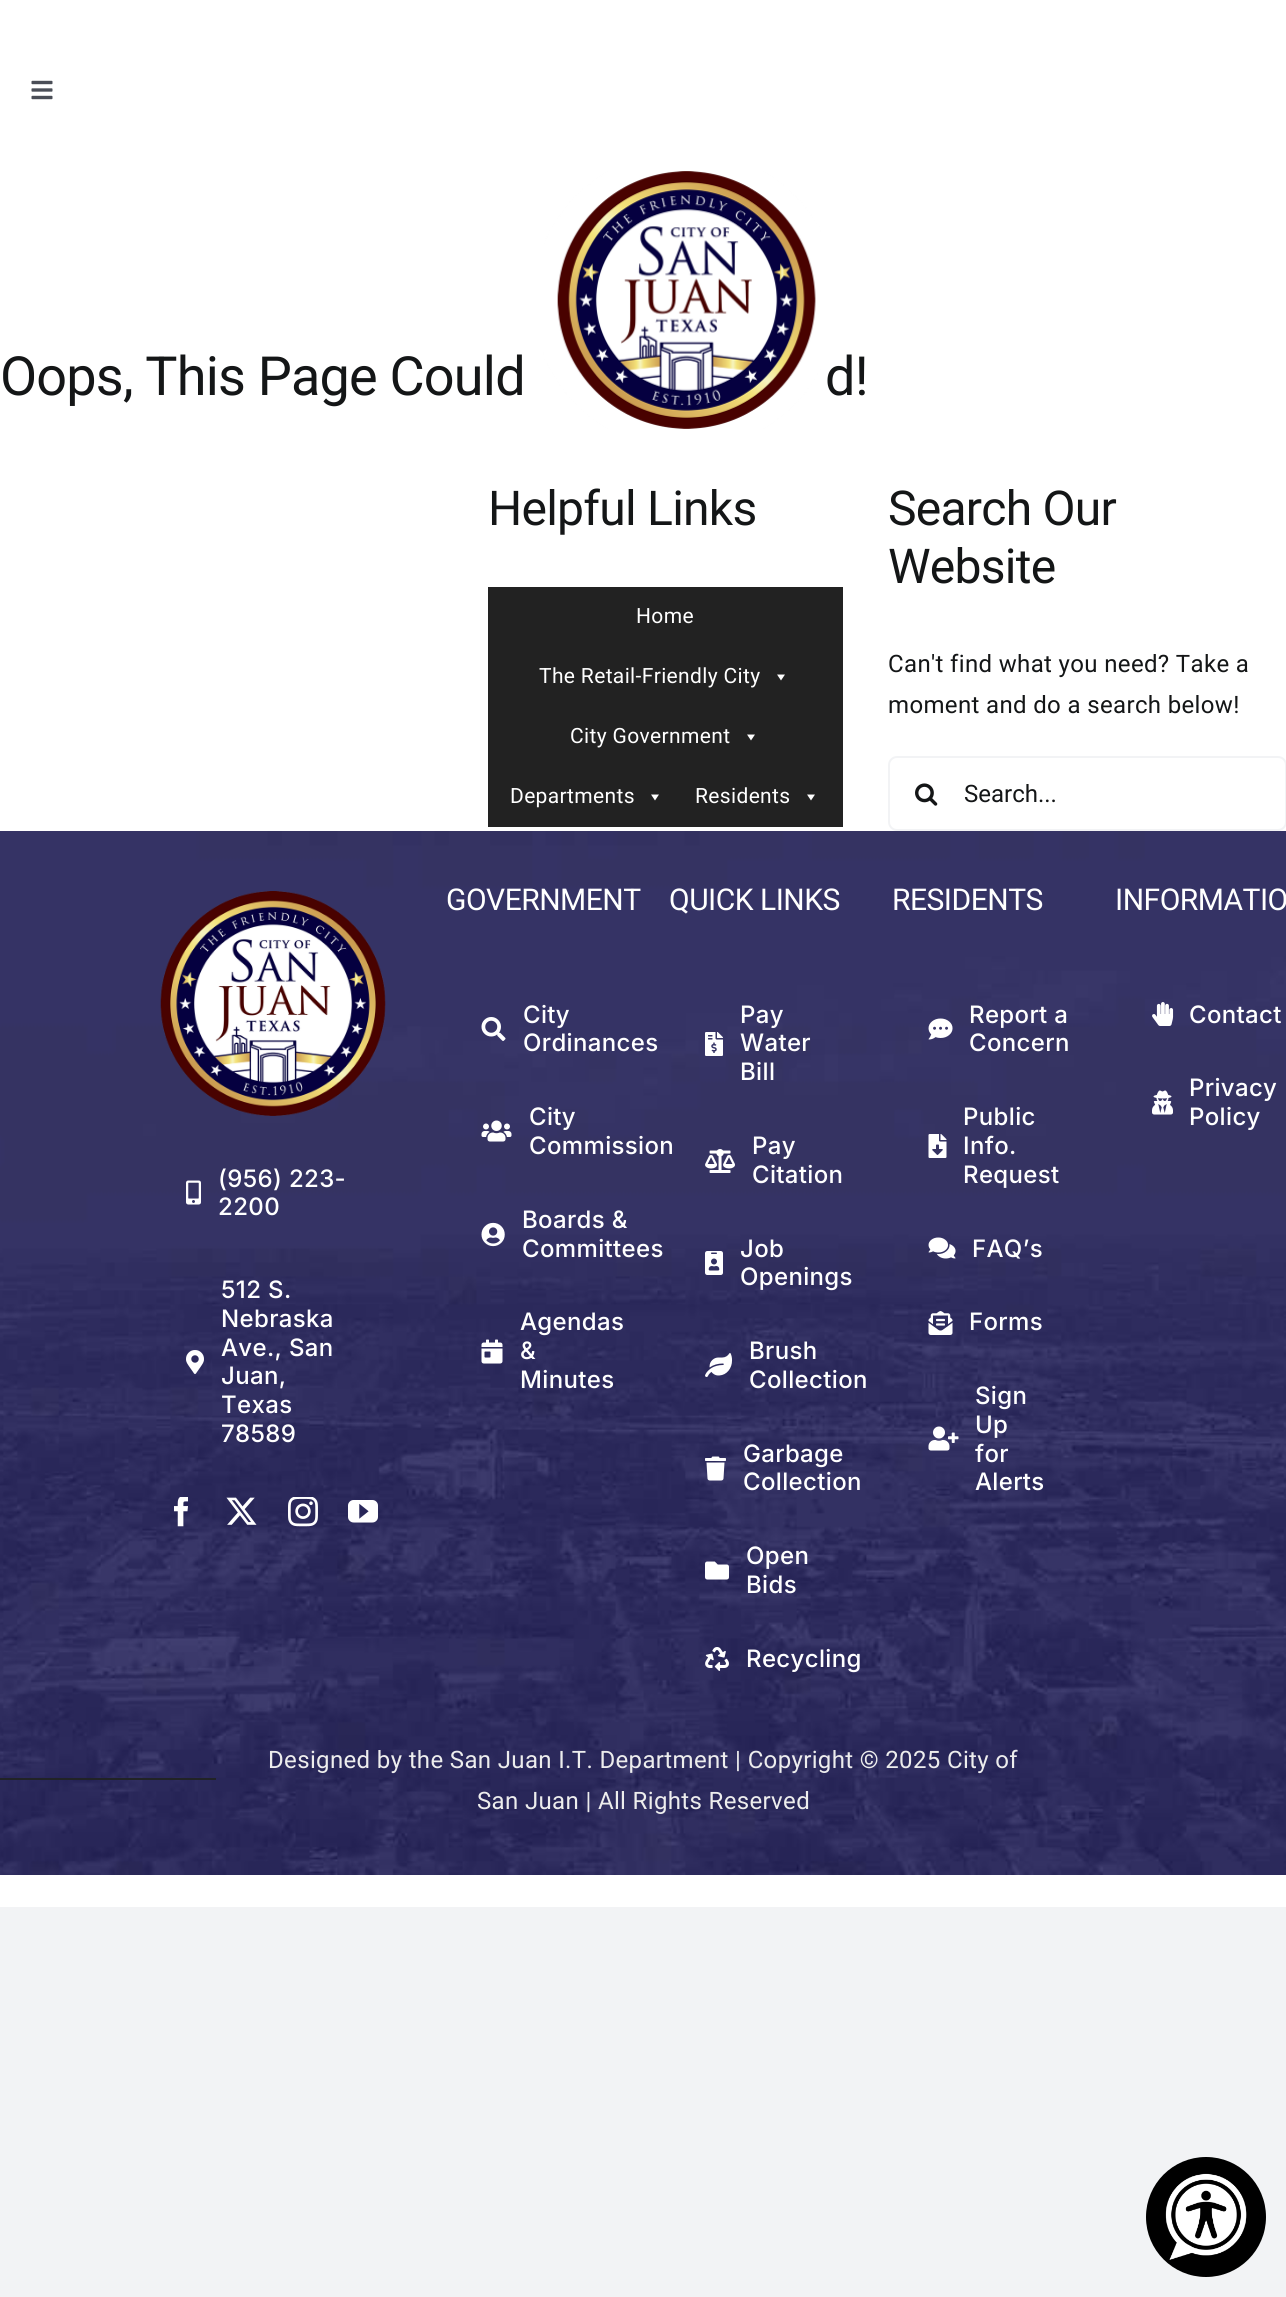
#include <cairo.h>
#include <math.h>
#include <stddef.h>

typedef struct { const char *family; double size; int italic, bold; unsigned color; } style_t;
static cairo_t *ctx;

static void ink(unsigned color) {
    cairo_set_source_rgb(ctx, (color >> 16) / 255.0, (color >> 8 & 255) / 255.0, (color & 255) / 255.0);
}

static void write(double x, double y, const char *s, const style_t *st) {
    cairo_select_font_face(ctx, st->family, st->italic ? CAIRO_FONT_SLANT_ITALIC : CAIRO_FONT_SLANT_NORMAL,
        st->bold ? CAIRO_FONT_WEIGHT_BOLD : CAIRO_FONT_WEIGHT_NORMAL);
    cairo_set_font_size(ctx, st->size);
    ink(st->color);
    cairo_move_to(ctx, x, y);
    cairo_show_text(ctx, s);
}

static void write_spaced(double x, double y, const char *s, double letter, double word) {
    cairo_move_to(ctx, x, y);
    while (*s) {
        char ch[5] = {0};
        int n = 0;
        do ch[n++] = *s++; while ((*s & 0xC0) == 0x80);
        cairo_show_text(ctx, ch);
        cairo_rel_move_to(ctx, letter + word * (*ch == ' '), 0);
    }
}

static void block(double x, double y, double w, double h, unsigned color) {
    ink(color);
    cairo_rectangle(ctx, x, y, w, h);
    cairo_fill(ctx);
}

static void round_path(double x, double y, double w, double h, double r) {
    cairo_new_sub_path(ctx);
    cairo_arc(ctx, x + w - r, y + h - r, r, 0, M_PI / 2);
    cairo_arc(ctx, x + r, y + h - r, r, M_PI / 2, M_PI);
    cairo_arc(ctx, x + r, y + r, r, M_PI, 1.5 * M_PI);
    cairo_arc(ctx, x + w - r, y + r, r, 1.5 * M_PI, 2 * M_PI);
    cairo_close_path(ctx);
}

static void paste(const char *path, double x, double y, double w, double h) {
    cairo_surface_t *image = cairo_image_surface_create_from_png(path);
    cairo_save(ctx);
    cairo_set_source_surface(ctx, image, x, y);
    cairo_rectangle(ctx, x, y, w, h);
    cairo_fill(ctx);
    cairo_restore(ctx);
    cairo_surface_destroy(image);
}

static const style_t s1 = {"Roboto", 24, 0, 0, 0x141617};

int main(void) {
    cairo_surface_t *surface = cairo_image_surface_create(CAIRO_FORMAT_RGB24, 1286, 2297);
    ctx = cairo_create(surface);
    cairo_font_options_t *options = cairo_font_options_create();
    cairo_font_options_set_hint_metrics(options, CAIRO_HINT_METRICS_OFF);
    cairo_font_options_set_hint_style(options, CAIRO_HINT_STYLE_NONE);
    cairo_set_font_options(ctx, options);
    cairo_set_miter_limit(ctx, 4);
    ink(0xf2f3f5);
    cairo_paint(ctx);
    block(0, 0, 1286, 1907, 0xffffff);
    paste("pic1.png", 31, 80, 22, 20);
    paste("pic2.png", 543, 171, 278, 258);
    cairo_select_font_face(ctx, "Roboto", CAIRO_FONT_SLANT_NORMAL, CAIRO_FONT_WEIGHT_NORMAL);
    cairo_set_font_size(ctx, 54);
    ink(0x141617);
    write_spaced(0, 395, "Oops, This Page Could", -0.8, 0);
    write_spaced(825, 395, "d!", -0.8, 0);
    cairo_set_font_size(ctx, 48);
    write_spaced(488, 525, "Helpful Links", -0.75, 0);
    block(488, 587, 355, 240, 0x222222);
    cairo_set_font_size(ctx, 21);
    ink(0xffffff);
    write_spaced(636, 623, "Home", 0.35, 0);
    write_spaced(539, 683, "The Retail-Friendly City", 0.35, 0);
    cairo_new_path(ctx);
    cairo_move_to(ctx, 785, 674.5);
    cairo_line_to(ctx, 781, 680.5);
    cairo_line_to(ctx, 777, 674.5);
    cairo_close_path(ctx);
    cairo_fill(ctx);
    write_spaced(570, 743, "City Government", 0.35, 0);
    cairo_new_path(ctx);
    cairo_move_to(ctx, 755, 734.5);
    cairo_line_to(ctx, 751, 740.5);
    cairo_line_to(ctx, 747, 734.5);
    cairo_close_path(ctx);
    cairo_fill(ctx);
    write_spaced(510, 803, "Departments", 0.35, 0);
    cairo_new_path(ctx);
    cairo_move_to(ctx, 659, 794.5);
    cairo_line_to(ctx, 655, 800.5);
    cairo_line_to(ctx, 651, 794.5);
    cairo_close_path(ctx);
    cairo_fill(ctx);
    write_spaced(695, 803, "Residents", 0.35, 0);
    cairo_new_path(ctx);
    cairo_move_to(ctx, 815, 794.5);
    cairo_line_to(ctx, 811, 800.5);
    cairo_line_to(ctx, 807, 794.5);
    cairo_close_path(ctx);
    cairo_fill(ctx);
    cairo_set_font_size(ctx, 48);
    ink(0x141617);
    write_spaced(888, 525, "Search Our", -0.75, 0);
    write_spaced(888, 583, "Website", -0.75, 0);
    cairo_set_font_size(ctx, 24);
    write_spaced(888, 672, "Can't find what you need? Take a", 0.35, 0);
    write_spaced(888, 713, "moment and do a search below!", 0.35, 0);
    round_path(889, 757, 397, 73, 8);
    ink(0xf2f3f5);
    cairo_stroke(ctx);
    paste("pic3.png", 915, 783, 23, 23);
    write(964, 802, "Search...", &s1);
    paste("pic4.png", 0, 831, 1286, 1044);
    cairo_set_font_size(ctx, 30);
    ink(0xffffff);
    write_spaced(446, 910, "GOVERNMENT", -0.5, 0);
    paste("pic5.png", 481, 1017, 25, 24);
    cairo_select_font_face(ctx, "Inter Medium", CAIRO_FONT_SLANT_NORMAL, CAIRO_FONT_WEIGHT_NORMAL);
    cairo_set_font_size(ctx, 24);
    write_spaced(523, 1023, "City", 0.35, 0);
    write_spaced(523, 1051, "Ordinances", 0.35, 0);
    paste("pic6.png", 481, 1120, 31, 22);
    write_spaced(529, 1125, "City", 0.35, 0);
    write_spaced(529, 1154, "Commission", 0.35, 0);
    paste("pic7.png", 481, 1222, 24, 25);
    write_spaced(522, 1228, "Boards &", 0.35, 0);
    write_spaced(522, 1257, "Committees", 0.35, 0);
    paste("pic8.png", 481, 1339, 22, 25);
    write_spaced(520, 1330, "Agendas", 0.35, 0);
    write_spaced(520, 1359, "&", 0.35, 0);
    write_spaced(520, 1388, "Minutes", 0.35, 0);
    cairo_select_font_face(ctx, "Roboto", CAIRO_FONT_SLANT_NORMAL, CAIRO_FONT_WEIGHT_NORMAL);
    cairo_set_font_size(ctx, 30);
    write_spaced(669, 910, "QUICK LINKS", -0.5, 0);
    paste("pic9.png", 705, 1032, 18, 24);
    cairo_select_font_face(ctx, "Inter Medium", CAIRO_FONT_SLANT_NORMAL, CAIRO_FONT_WEIGHT_NORMAL);
    cairo_set_font_size(ctx, 24);
    write_spaced(740, 1023, "Pay", 0.35, 0);
    write_spaced(740, 1051, "Water", 0.35, 0);
    write_spaced(740, 1080, "Bill", 0.35, 0);
    paste("pic10.png", 705, 1149, 30, 24);
    write_spaced(752, 1154, "Pay", 0.35, 0);
    write_spaced(752, 1183, "Citation", 0.35, 0);
    paste("pic11.png", 705, 1251, 18, 24);
    write_spaced(740, 1257, "Job", 0.35, 0);
    write_spaced(740, 1285, "Openings", 0.35, 0);
    paste("pic12.png", 705, 1353, 28, 24);
    write_spaced(749, 1359, "Brush", 0.35, 0);
    write_spaced(749, 1388, "Collection", 0.35, 0);
    paste("pic13.png", 705, 1456, 21, 25);
    write_spaced(743, 1462, "Garbage", 0.35, 0);
    write_spaced(743, 1490, "Collection", 0.35, 0);
    paste("pic14.png", 705, 1561, 24, 19);
    write_spaced(746, 1564, "Open", 0.35, 0);
    write_spaced(746, 1593, "Bids", 0.35, 0);
    paste("pic15.png", 705, 1647, 24, 24);
    write_spaced(746, 1667, "Recycling", 0.35, 0);
    cairo_select_font_face(ctx, "Roboto", CAIRO_FONT_SLANT_NORMAL, CAIRO_FONT_WEIGHT_NORMAL);
    cairo_set_font_size(ctx, 30);
    write_spaced(892, 910, "RESIDENTS", -0.5, 0);
    paste("pic16.png", 928, 1018, 25, 22);
    cairo_select_font_face(ctx, "Inter Medium", CAIRO_FONT_SLANT_NORMAL, CAIRO_FONT_WEIGHT_NORMAL);
    cairo_set_font_size(ctx, 24);
    write_spaced(969, 1023, "Report a", 0.35, 0);
    write_spaced(969, 1051, "Concern", 0.35, 0);
    paste("pic17.png", 928, 1134, 19, 24);
    write_spaced(963, 1125, "Public", 0.35, 0);
    write_spaced(963, 1154, "Info.", 0.35, 0);
    write_spaced(963, 1183, "Request", 0.35, 0);
    paste("pic18.png", 928, 1237, 28, 22);
    write_spaced(972, 1257, "FAQ’s", 0.35, 0);
    paste("pic19.png", 928, 1311, 25, 24);
    write_spaced(969, 1330, "Forms", 0.35, 0);
    paste("pic20.png", 928, 1426, 31, 25);
    write_spaced(975, 1404, "Sign", 0.35, 0);
    write_spaced(975, 1433, "Up", 0.35, 0);
    write_spaced(975, 1462, "for", 0.35, 0);
    write_spaced(975, 1490, "Alerts", 0.35, 0);
    cairo_select_font_face(ctx, "Roboto", CAIRO_FONT_SLANT_NORMAL, CAIRO_FONT_WEIGHT_NORMAL);
    cairo_set_font_size(ctx, 30);
    write_spaced(1115, 910, "INFORMATIO", -0.5, 0);
    paste("pic21.png", 1152, 1002, 22, 24);
    cairo_select_font_face(ctx, "Inter Medium", CAIRO_FONT_SLANT_NORMAL, CAIRO_FONT_WEIGHT_NORMAL);
    cairo_set_font_size(ctx, 24);
    write_spaced(1189, 1023, "Contact", 0.35, 0);
    paste("pic22.png", 1152, 1090, 21, 25);
    write_spaced(1189, 1096, "Privacy", 0.35, 0);
    write_spaced(1189, 1125, "Policy", 0.35, 0);
    paste("pic23.png", 160, 891, 226, 225);
    paste("pic24.png", 186, 1180, 15, 25);
    write_spaced(218, 1187, "(956) 223-", 0.35, 0);
    write_spaced(218, 1215, "2200", 0.35, 0);
    paste("pic25.png", 186, 1350, 18, 24);
    write_spaced(221, 1298, "512 S.", 0.35, 0);
    write_spaced(221, 1327, "Nebraska", 0.35, 0);
    write_spaced(221, 1356, "Ave., San", 0.35, 0);
    write_spaced(221, 1384, "Juan,", 0.35, 0);
    write_spaced(221, 1413, "Texas", 0.35, 0);
    write_spaced(221, 1442, "78589", 0.35, 0);
    paste("pic26.png", 174, 1497, 14, 30);
    paste("pic27.png", 226, 1497, 31, 28);
    paste("pic28.png", 288, 1497, 30, 30);
    paste("pic29.png", 348, 1500, 30, 23);
    block(0, 1778, 216, 2, 0x212326);
    cairo_select_font_face(ctx, "Roboto", CAIRO_FONT_SLANT_NORMAL, CAIRO_FONT_WEIGHT_NORMAL);
    ink(0xededed);
    write_spaced(268, 1768, "Designed by the San Juan I.T. Department | Copyright © 2025 City of", 0.35, 0);
    write_spaced(477, 1809, "San Juan | All Rights Reserved", 0.35, 0);
    ink(0x000000);
    cairo_new_path(ctx);
    cairo_arc(ctx, 1206, 2217, 60, 0, 2 * M_PI);
    cairo_fill(ctx);
    paste("pic30.png", 1165, 2173, 82, 87);
    cairo_surface_write_to_png(surface, "screenshot.png");
    cairo_font_options_destroy(options);
    cairo_destroy(ctx);
    cairo_surface_destroy(surface);
    return 0;
}
